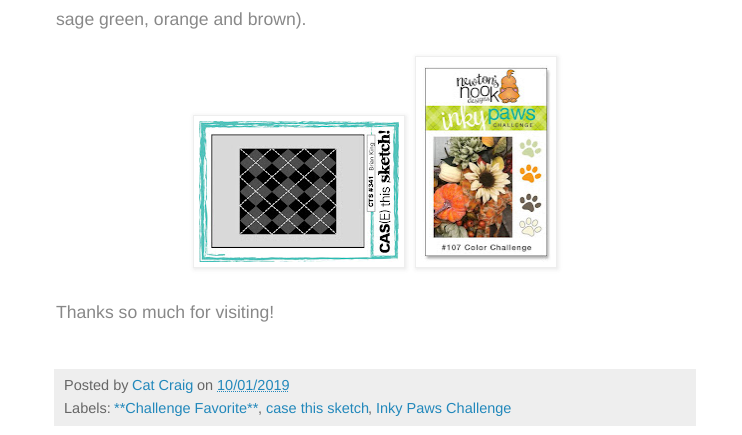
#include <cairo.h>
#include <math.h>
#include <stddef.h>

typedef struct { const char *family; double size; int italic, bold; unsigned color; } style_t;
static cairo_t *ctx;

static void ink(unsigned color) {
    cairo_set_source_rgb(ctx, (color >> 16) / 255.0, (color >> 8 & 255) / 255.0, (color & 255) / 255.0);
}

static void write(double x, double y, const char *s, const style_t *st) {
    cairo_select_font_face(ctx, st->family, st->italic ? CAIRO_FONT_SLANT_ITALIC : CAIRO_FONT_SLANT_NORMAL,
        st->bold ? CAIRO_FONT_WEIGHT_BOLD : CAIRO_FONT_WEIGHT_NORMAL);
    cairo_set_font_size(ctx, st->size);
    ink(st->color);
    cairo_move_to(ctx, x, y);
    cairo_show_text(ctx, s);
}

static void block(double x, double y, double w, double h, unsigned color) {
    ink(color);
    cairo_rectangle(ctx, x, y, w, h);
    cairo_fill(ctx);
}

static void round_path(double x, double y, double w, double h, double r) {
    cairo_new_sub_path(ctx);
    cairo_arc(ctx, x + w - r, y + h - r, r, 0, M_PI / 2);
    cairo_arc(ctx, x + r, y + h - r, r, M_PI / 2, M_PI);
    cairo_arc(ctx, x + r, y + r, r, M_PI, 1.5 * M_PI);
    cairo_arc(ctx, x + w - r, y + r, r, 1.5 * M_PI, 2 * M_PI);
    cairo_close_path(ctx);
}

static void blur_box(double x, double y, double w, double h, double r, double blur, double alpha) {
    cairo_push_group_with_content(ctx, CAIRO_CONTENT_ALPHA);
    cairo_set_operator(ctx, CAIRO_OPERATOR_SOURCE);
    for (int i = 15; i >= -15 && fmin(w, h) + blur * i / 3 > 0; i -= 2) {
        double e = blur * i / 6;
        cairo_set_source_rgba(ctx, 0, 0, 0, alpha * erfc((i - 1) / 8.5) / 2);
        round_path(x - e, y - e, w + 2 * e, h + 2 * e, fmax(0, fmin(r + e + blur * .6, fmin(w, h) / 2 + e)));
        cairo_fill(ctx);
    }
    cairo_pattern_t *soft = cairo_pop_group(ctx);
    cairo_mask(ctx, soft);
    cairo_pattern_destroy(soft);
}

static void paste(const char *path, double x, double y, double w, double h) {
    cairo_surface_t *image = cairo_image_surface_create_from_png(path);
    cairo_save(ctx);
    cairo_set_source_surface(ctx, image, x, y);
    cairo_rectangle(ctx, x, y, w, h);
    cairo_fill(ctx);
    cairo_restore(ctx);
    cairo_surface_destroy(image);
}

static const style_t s1 = {"Liberation Sans", 17.6, 0, 0, 0x888888};
static const style_t s2 = {"Liberation Sans", 14.5, 0, 0, 0x666666};
static const style_t s3 = {"Liberation Sans", 14.5, 0, 0, 0x2288bb};

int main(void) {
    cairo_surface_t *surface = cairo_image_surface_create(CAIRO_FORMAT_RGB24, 742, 435);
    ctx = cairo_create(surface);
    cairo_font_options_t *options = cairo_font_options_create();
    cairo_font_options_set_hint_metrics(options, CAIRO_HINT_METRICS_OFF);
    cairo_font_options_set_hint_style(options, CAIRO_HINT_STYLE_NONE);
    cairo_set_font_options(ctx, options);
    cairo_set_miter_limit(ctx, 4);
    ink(0xffffff);
    cairo_paint(ctx);
    write(56, 25, "sage green, orange and brown).", &s1);
    cairo_save(ctx);
    cairo_set_fill_rule(ctx, CAIRO_FILL_RULE_EVEN_ODD);
    cairo_new_path(ctx);
    cairo_move_to(ctx, 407, 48);
    cairo_line_to(ctx, 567, 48);
    cairo_line_to(ctx, 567, 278);
    cairo_line_to(ctx, 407, 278);
    cairo_close_path(ctx);
    cairo_move_to(ctx, 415, 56);
    cairo_line_to(ctx, 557, 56);
    cairo_line_to(ctx, 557, 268);
    cairo_line_to(ctx, 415, 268);
    cairo_close_path(ctx);
    cairo_clip(ctx);
    ink(0x000000);
    blur_box(416, 57, 142, 212, 0, 2.5, 0.1);
    cairo_restore(ctx);
    cairo_rectangle(ctx, 415.5, 56.5, 141, 211);
    ink(0xeeeeee);
    cairo_set_line_width(ctx, 1);
    cairo_stroke(ctx);
    cairo_save(ctx);
    cairo_set_fill_rule(ctx, CAIRO_FILL_RULE_EVEN_ODD);
    cairo_new_path(ctx);
    cairo_move_to(ctx, 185, 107);
    cairo_line_to(ctx, 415, 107);
    cairo_line_to(ctx, 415, 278);
    cairo_line_to(ctx, 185, 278);
    cairo_close_path(ctx);
    cairo_move_to(ctx, 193, 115);
    cairo_line_to(ctx, 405, 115);
    cairo_line_to(ctx, 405, 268);
    cairo_line_to(ctx, 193, 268);
    cairo_close_path(ctx);
    cairo_clip(ctx);
    ink(0x000000);
    blur_box(194, 116, 212, 153, 0, 2.5, 0.1);
    cairo_restore(ctx);
    paste("pic1.png", 421, 65, 130, 197);
    cairo_rectangle(ctx, 193.5, 115.5, 211, 152);
    cairo_stroke(ctx);
    paste("pic2.png", 199, 121, 200, 141);
    write(56, 318, "Thanks so much for visiting!", &s1);
    block(54, 369, 642, 57, 0xeeeeee);
    write(64, 390, "Posted by", &s2);
    write(132, 390, "Cat Craig", &s3);
    write(197, 390, "on", &s2);
    write(217, 390, "10/01/2019", &s3);
    cairo_new_path(ctx);
    cairo_move_to(ctx, 217, 391.5);
    cairo_line_to(ctx, 289, 391.5);
    cairo_set_dash(ctx, (double[]){1, 1}, 2, 0);
    cairo_stroke(ctx);
    write(64, 413, "Labels:", &s2);
    write(114, 413, "**Challenge Favorite**", &s3);
    write(258, 413, ",", &s2);
    write(266, 413, "case this sketch", &s3);
    write(368, 413, ",", &s2);
    write(376, 413, "Inky Paws Challenge", &s3);
    cairo_surface_write_to_png(surface, "screenshot.png");
    cairo_font_options_destroy(options);
    cairo_destroy(ctx);
    cairo_surface_destroy(surface);
    return 0;
}
